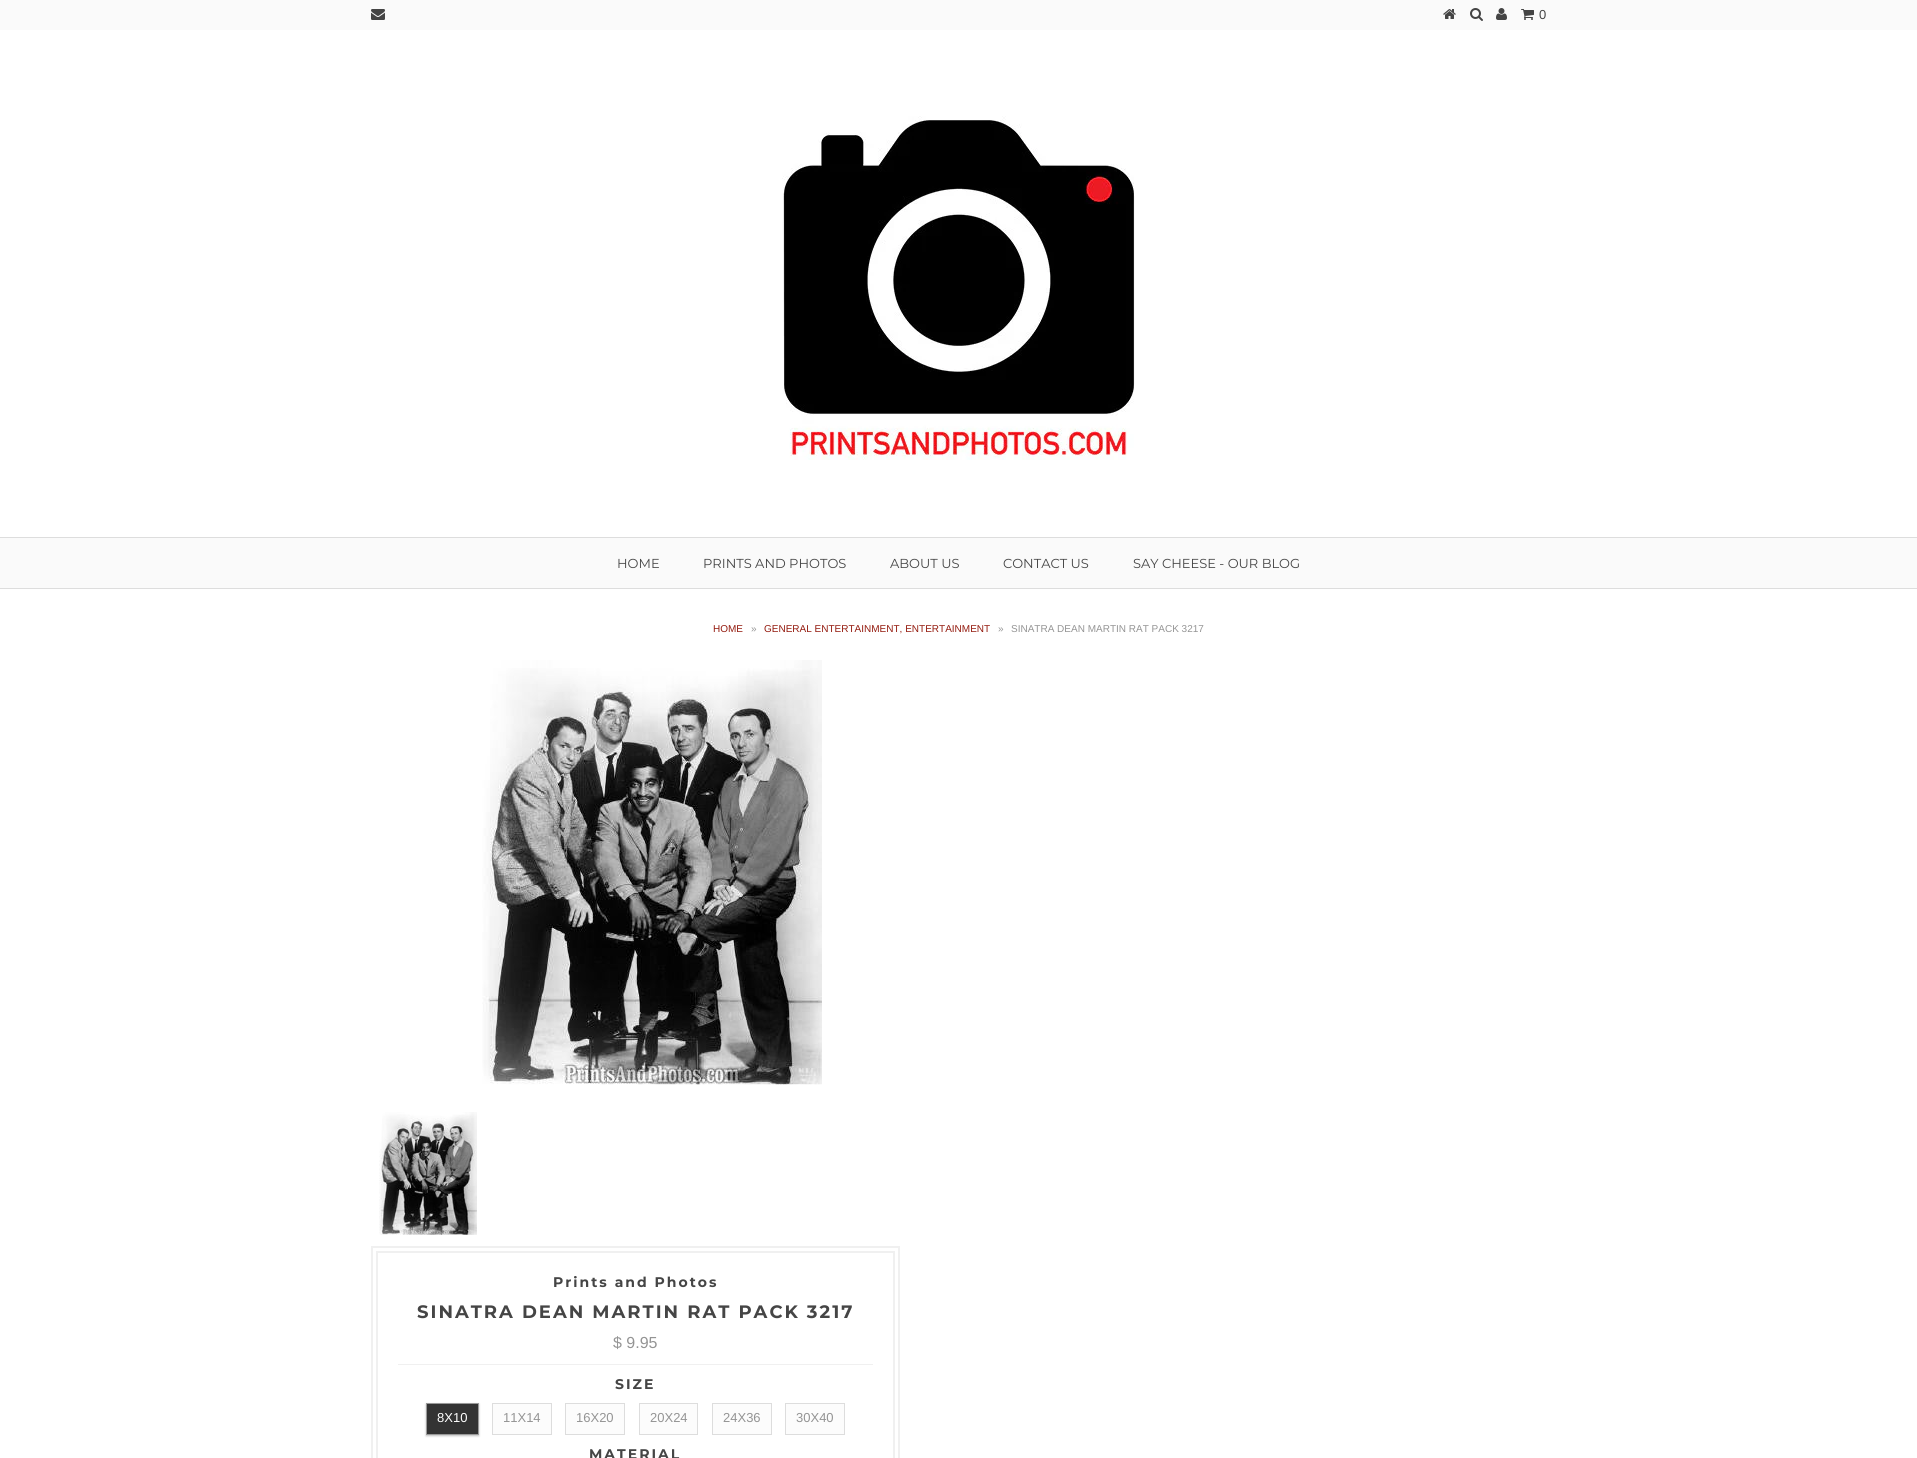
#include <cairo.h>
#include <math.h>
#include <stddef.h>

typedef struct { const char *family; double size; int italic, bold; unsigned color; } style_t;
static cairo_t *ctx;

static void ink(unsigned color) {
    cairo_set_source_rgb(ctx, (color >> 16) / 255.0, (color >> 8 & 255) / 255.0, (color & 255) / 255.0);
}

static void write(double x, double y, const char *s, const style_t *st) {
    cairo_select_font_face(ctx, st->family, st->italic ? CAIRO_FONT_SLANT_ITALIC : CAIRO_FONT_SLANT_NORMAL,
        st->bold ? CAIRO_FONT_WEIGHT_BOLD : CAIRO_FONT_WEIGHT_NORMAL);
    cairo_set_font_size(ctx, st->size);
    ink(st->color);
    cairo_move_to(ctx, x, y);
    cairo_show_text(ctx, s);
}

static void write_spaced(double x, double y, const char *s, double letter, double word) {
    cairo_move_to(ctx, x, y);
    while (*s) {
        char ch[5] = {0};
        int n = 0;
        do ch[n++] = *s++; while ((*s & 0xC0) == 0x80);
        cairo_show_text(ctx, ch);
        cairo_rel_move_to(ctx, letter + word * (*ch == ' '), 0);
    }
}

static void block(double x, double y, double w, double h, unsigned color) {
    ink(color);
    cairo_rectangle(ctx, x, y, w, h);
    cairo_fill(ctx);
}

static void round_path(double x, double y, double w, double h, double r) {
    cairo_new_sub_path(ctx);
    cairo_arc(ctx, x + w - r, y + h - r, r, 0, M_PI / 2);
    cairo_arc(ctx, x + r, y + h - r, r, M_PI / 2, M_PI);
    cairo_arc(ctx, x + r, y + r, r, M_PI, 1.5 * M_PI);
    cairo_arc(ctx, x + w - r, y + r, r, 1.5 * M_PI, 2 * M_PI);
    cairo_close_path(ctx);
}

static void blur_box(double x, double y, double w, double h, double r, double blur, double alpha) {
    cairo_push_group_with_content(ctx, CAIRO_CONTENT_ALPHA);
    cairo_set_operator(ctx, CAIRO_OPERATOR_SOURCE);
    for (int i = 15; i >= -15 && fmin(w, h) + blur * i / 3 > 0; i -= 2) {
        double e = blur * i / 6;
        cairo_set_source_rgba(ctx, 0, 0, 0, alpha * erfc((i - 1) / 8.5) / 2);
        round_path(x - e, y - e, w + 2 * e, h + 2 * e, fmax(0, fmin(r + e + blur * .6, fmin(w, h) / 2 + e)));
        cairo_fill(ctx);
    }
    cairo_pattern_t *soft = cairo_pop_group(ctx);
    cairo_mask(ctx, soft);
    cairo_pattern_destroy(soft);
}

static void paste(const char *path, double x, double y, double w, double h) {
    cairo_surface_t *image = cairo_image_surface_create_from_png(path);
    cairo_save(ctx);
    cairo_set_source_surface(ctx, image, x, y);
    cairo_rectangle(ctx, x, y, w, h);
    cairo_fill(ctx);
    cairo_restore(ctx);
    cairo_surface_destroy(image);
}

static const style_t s1 = {"Liberation Sans", 13, 0, 0, 0x454545};
static const style_t s2 = {"Montserrat", 13, 0, 0, 0x454545};
static const style_t s3 = {"Liberation Sans", 10, 0, 0, 0x941b0f};
static const style_t s4 = {"Liberation Sans", 10, 0, 0, 0x949494};
static const style_t s5 = {"Liberation Sans", 16, 0, 0, 0x949494};
static const style_t s6 = {"Liberation Sans", 13, 0, 0, 0xffffff};
static const style_t s7 = {"Liberation Sans", 13, 0, 0, 0x949494};

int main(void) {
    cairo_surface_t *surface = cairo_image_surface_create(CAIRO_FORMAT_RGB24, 1917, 1458);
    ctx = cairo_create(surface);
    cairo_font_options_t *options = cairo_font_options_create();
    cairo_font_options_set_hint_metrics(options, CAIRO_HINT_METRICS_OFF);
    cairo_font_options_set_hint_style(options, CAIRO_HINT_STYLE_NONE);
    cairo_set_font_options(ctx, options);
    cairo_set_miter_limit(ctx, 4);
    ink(0xffffff);
    cairo_paint(ctx);
    block(0, 0, 1917, 30, 0xfafafa);
    paste("pic1.png", 371, 9, 14, 11);
    paste("pic2.png", 1443, 9, 13, 10);
    paste("pic3.png", 1470, 8, 13, 13);
    paste("pic4.png", 1496, 8, 11, 12);
    paste("pic5.png", 1521, 9, 13, 11);
    write(1539, 19, "0", &s1);
    paste("pic6.png", 782, 116, 353, 344);
    block(0, 538, 1917, 50, 0xfafafa);
    block(0, 537, 1917, 1, 0xdddddd);
    block(0, 588, 1917, 1, 0xdddddd);
    write(617, 568, "HOME", &s2);
    write(703, 568, "PRINTS AND PHOTOS", &s2);
    write(890, 568, "ABOUT US", &s2);
    write(1003, 568, "CONTACT US", &s2);
    write(1133, 568, "SAY CHEESE - OUR BLOG", &s2);
    write(713, 632, "HOME", &s3);
    write(751, 632, "»", &s4);
    write(764, 632, "GENERAL ENTERTAINMENT, ENTERTAINMENT", &s3);
    write(998, 632, "»", &s4);
    write(1011, 632, "SINATRA DEAN MARTIN RAT PACK 3217", &s4);
    paste("pic7.png", 482, 660, 340, 425);
    paste("pic8.png", 379, 1112, 98, 123);
    cairo_rectangle(ctx, 372, 1247, 527, 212);
    ink(0xf0f0f0);
    cairo_stroke(ctx);
    cairo_rectangle(ctx, 377, 1252, 517, 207);
    cairo_stroke(ctx);
    cairo_select_font_face(ctx, "Montserrat", CAIRO_FONT_SLANT_NORMAL, CAIRO_FONT_WEIGHT_BOLD);
    cairo_set_font_size(ctx, 14);
    ink(0x454545);
    write_spaced(553, 1287, "Prints and Photos", 2, 0);
    cairo_set_font_size(ctx, 18);
    write_spaced(417, 1318, "SINATRA DEAN MARTIN RAT PACK 3217", 2, 0);
    write(613, 1348, "$ 9.95", &s5);
    block(398, 1364, 475, 1, 0xf0f0f0);
    cairo_select_font_face(ctx, "Montserrat", CAIRO_FONT_SLANT_NORMAL, CAIRO_FONT_WEIGHT_BOLD);
    cairo_set_font_size(ctx, 14);
    ink(0x454545);
    write_spaced(615, 1389, "SIZE", 2, 0);
    ink(0x000000);
    blur_box(426, 1404, 53, 32, 0, 1, 0.25);
    ink(0x333333);
    cairo_rectangle(ctx, 426.5, 1403.5, 52, 31);
    cairo_fill_preserve(ctx);
    ink(0x999999);
    cairo_set_line_width(ctx, 1);
    cairo_stroke(ctx);
    write(437, 1422, "8X10", &s6);
    ink(0xfcfcfc);
    cairo_rectangle(ctx, 492.5, 1403.5, 59, 31);
    cairo_fill_preserve(ctx);
    ink(0xdddddd);
    cairo_stroke(ctx);
    write(503, 1422, "11X14", &s7);
    ink(0xfcfcfc);
    cairo_rectangle(ctx, 565.5, 1403.5, 59, 31);
    cairo_fill_preserve(ctx);
    ink(0xdddddd);
    cairo_stroke(ctx);
    write(576, 1422, "16X20", &s7);
    ink(0xfcfcfc);
    cairo_rectangle(ctx, 639.5, 1403.5, 58, 31);
    cairo_fill_preserve(ctx);
    ink(0xdddddd);
    cairo_stroke(ctx);
    write(650, 1422, "20X24", &s7);
    ink(0xfcfcfc);
    cairo_rectangle(ctx, 712.5, 1403.5, 59, 31);
    cairo_fill_preserve(ctx);
    ink(0xdddddd);
    cairo_stroke(ctx);
    write(723, 1422, "24X36", &s7);
    ink(0xfcfcfc);
    cairo_rectangle(ctx, 785.5, 1403.5, 59, 31);
    cairo_fill_preserve(ctx);
    ink(0xdddddd);
    cairo_stroke(ctx);
    write(796, 1422, "30X40", &s7);
    cairo_select_font_face(ctx, "Montserrat", CAIRO_FONT_SLANT_NORMAL, CAIRO_FONT_WEIGHT_BOLD);
    cairo_set_font_size(ctx, 14);
    ink(0x454545);
    write_spaced(589, 1459, "MATERIAL", 2, 0);
    cairo_surface_write_to_png(surface, "screenshot.png");
    cairo_font_options_destroy(options);
    cairo_destroy(ctx);
    cairo_surface_destroy(surface);
    return 0;
}
